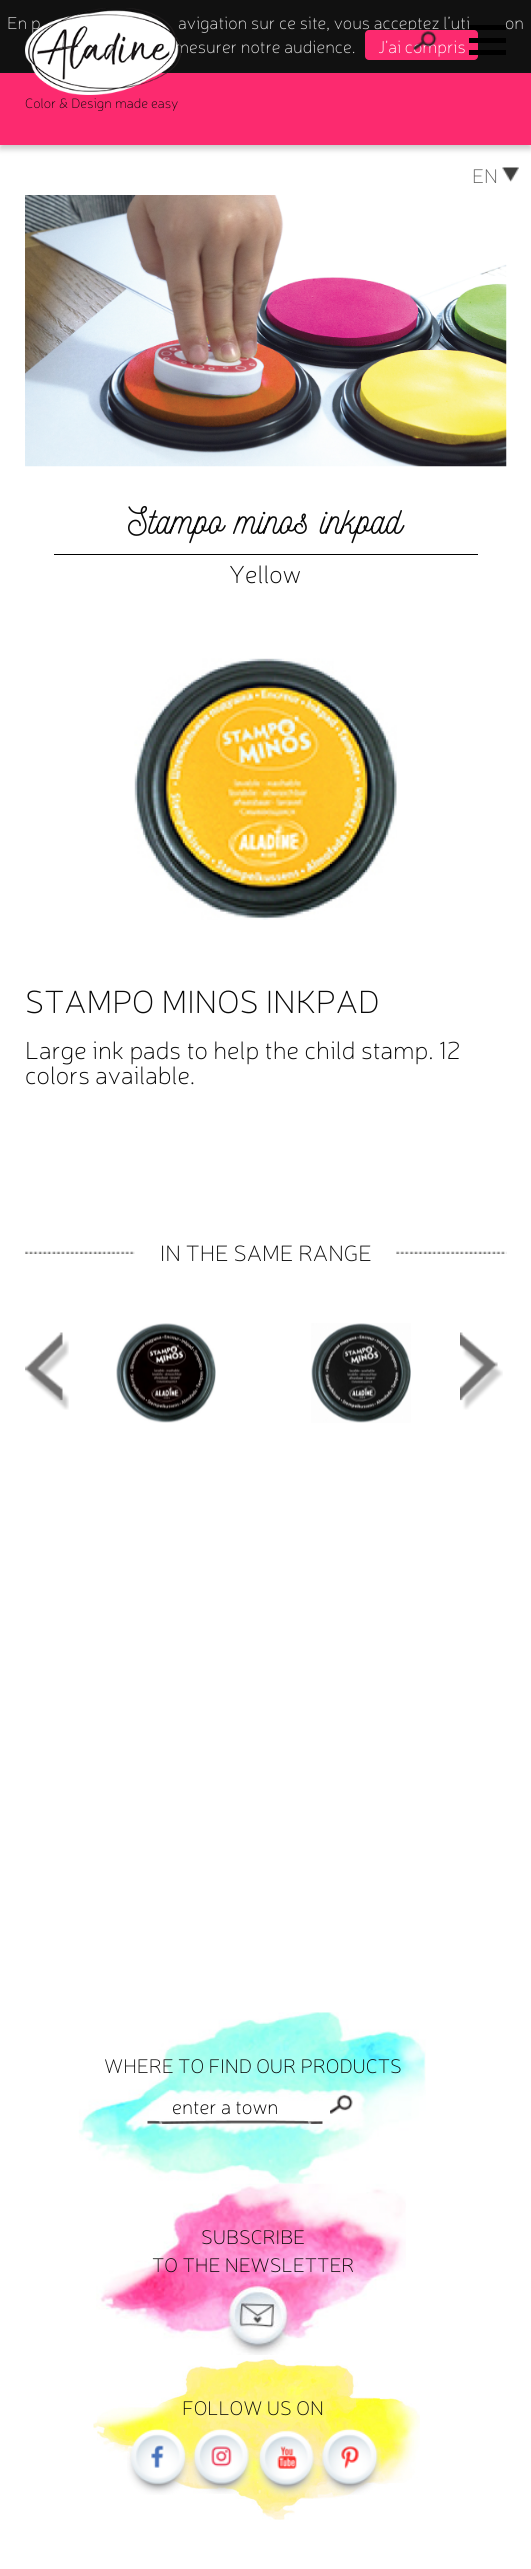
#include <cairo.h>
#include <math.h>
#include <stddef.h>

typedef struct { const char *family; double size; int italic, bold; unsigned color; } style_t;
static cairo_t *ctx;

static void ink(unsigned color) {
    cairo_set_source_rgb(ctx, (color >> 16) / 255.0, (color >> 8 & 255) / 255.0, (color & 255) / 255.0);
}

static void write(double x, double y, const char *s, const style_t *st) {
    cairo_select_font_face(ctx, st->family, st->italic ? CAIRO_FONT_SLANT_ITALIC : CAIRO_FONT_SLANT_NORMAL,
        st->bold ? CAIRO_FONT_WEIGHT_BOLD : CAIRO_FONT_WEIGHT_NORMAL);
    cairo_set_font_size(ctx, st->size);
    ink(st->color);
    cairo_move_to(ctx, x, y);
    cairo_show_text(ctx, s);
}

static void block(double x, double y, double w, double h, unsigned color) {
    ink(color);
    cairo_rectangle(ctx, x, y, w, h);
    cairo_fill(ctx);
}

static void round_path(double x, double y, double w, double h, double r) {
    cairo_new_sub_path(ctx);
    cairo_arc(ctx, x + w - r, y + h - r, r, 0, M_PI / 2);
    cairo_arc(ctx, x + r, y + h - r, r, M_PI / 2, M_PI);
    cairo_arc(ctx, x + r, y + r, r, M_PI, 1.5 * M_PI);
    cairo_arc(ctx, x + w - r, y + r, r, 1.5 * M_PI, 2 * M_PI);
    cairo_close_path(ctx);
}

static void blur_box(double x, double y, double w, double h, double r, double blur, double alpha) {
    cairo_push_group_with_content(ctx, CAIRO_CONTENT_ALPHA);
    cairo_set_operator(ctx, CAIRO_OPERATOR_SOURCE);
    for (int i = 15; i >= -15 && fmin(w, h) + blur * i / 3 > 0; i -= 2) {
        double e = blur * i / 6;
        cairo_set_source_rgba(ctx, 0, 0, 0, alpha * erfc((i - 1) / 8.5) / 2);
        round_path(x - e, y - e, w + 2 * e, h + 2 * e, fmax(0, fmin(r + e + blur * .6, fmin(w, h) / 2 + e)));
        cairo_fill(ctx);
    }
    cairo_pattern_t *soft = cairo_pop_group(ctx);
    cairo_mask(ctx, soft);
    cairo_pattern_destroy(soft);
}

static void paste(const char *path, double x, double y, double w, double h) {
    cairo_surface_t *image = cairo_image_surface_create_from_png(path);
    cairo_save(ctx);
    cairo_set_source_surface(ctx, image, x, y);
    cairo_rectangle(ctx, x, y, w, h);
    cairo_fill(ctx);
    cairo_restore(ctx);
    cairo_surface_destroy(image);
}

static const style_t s1 = {"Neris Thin", 17.5, 0, 0, 0xdcdcdc};
static const style_t s2 = {"Neris Thin", 17.5, 0, 0, 0xffffff};
static const style_t s3 = {"Neris Thin", 13.75, 0, 0, 0x0a0a0a};
static const style_t s4 = {"Neris Thin", 20, 0, 0, 0x616160};
static const style_t s5 = {"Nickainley", 37.5, 0, 0, 0x0a0a0a};
static const style_t s6 = {"Neris Thin", 25, 0, 0, 0x0a0a0a};
static const style_t s7 = {"Neris Thin", 32.5, 0, 0, 0x0a0a0a};
static const style_t s8 = {"Neris Thin", 22.5, 0, 0, 0x0a0a0a};
static const style_t s9 = {"Neris Thin", 20, 0, 0, 0x0a0a0a};
static const style_t s10 = {"Neris Thin", 20, 0, 0, 0x000000};

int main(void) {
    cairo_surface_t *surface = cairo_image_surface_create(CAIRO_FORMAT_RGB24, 531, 2569);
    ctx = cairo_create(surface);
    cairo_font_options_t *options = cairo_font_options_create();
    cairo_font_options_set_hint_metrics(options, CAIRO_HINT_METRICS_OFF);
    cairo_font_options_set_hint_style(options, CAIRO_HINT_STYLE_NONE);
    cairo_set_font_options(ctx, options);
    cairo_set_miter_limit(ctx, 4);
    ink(0xffffff);
    cairo_paint(ctx);
    block(0, 0, 531, 73, 0x111111);
    write(7, 29, "En p", &s1);
    write(178, 29, "avigation sur ce site, vous acceptez l’uti", &s1);
    write(505, 29, "on", &s1);
    write(174, 53, "mesurer notre audience.", &s1);
    ink(0xfc2a6f);
    round_path(365, 30, 113, 30, 4);
    cairo_fill(ctx);
    write(378, 53, "J'ai compris", &s2);
    block(469, 38, 37, 5, 0x000000);
    block(469, 25, 37, 5, 0x000000);
    block(469, 50, 37, 5, 0x000000);
    ink(0x4e4e4e);
    blur_box(0, 76, 531, 73, 0, 3, 0.3);
    paste("pic1.png", 413, 31, 24, 19);
    block(0, 73, 531, 72, 0xfc2a6f);
    paste("pic2.png", 25, 8, 157, 87);
    write(25, 108, "Color & Design made easy", &s3);
    write(472, 183, "EN", &s4);
    paste("pic3.png", 502, 167, 17, 15);
    paste("pic4.png", 25, 195, 482, 272);
    block(54, 554, 424, 1, 0x000000);
    write(128, 534, "Stampo minos inkpad", &s5);
    write(229, 583, "Yellow", &s6);
    paste("pic5.png", 134, 658, 263, 262);
    write(25, 1013, "STAMPO MINOS INKPAD", &s7);
    write(25, 1059, "Large ink pads to help the child stamp. 12", &s6);
    write(25, 1084, "colors available.", &s6);
    paste("pic6.png", 25, 1251, 482, 3);
    block(135, 1251, 261, 3, 0xffffff);
    write(160, 1261, "IN THE SAME RANGE", &s8);
    paste("pic7.png", 25, 1332, 44, 78);
    paste("pic8.png", 116, 1323, 100, 100);
    paste("pic9.png", 311, 1323, 100, 100);
    paste("pic10.png", 460, 1332, 43, 78);
    paste("pic11.png", 78, 2012, 348, 172);
    write(104, 2073, "WHERE TO FIND OUR PRODUCTS", &s9);
    paste("pic12.png", 147, 2120, 176, 4);
    write(172, 2114, "enter a town", &s10);
    paste("pic13.png", 330, 2094, 23, 20);
    paste("pic14.png", 96, 2183, 310, 172);
    write(201, 2244, "SUBSCRIBE", &s9);
    write(152, 2272, "TO THE NEWSLETTER", &s9);
    paste("pic15.png", 93, 2356, 327, 164);
    write(182, 2415, "FOLLOW US ON", &s9);
    paste("pic16.png", 127, 2428, 63, 67);
    paste("pic17.png", 190, 2428, 64, 66);
    paste("pic18.png", 254, 2430, 64, 69);
    paste("pic19.png", 317, 2428, 65, 67);
    cairo_surface_write_to_png(surface, "screenshot.png");
    cairo_font_options_destroy(options);
    cairo_destroy(ctx);
    cairo_surface_destroy(surface);
    return 0;
}
